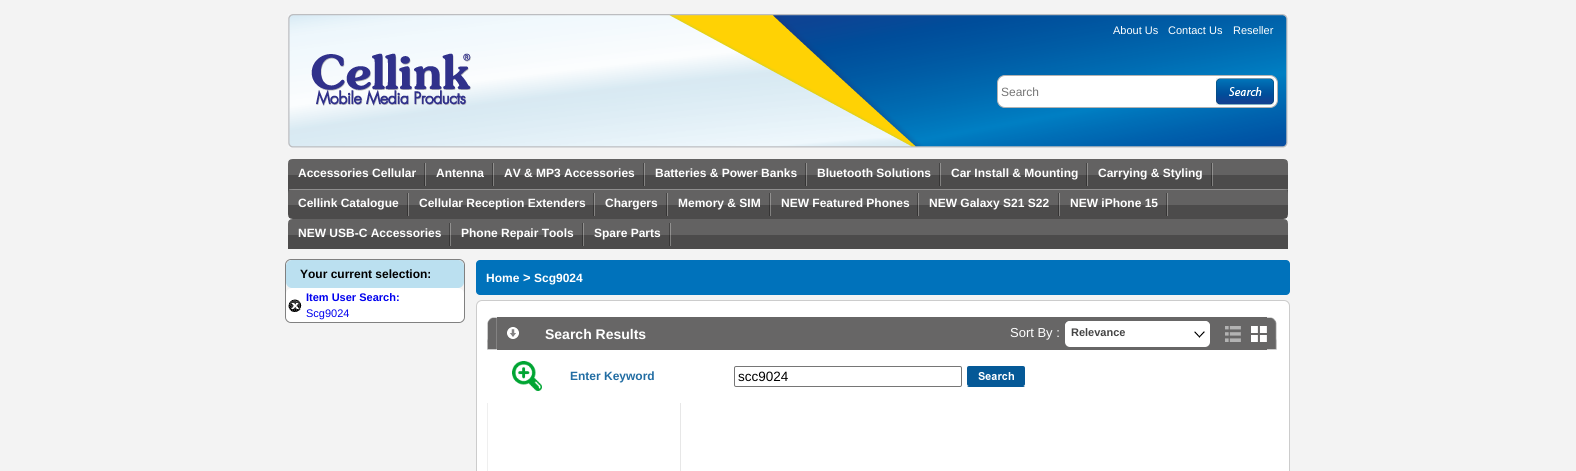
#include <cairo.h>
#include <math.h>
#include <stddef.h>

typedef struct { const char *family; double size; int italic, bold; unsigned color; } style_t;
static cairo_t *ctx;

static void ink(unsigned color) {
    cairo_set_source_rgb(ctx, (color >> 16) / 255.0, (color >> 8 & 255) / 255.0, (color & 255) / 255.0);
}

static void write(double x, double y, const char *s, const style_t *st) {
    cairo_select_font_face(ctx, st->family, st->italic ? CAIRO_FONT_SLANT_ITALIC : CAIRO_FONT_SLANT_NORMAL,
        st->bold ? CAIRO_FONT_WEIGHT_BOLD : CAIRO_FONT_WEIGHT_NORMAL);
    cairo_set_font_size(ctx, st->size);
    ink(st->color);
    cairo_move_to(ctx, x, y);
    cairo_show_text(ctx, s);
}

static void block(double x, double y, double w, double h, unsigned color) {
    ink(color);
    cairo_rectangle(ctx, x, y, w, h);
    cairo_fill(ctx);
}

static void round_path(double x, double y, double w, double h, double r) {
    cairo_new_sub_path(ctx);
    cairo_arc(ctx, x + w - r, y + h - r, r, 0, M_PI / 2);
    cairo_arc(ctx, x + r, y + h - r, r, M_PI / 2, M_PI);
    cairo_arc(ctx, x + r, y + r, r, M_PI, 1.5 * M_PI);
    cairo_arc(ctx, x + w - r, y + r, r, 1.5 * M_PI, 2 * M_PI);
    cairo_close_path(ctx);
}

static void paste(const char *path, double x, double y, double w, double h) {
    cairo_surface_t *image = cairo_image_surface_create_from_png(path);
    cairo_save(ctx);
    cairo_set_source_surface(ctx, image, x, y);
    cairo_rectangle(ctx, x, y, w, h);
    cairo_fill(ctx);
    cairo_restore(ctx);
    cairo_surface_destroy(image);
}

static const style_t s1 = {"Liberation Sans", 11, 0, 0, 0xffffff};
static const style_t s2 = {"Liberation Sans", 12, 0, 0, 0x757575};
static const style_t s3 = {"Liberation Sans", 12, 0, 1, 0xffffff};
static const style_t s4 = {"Liberation Sans", 12, 0, 1, 0x000000};
static const style_t s5 = {"Liberation Sans", 11, 0, 1, 0x0000ee};
static const style_t s6 = {"Liberation Sans", 11, 0, 0, 0x0000ee};
static const style_t s7 = {"Liberation Sans", 13, 0, 1, 0xffffff};
static const style_t s8 = {"Liberation Sans", 14, 0, 1, 0xffffff};
static const style_t s9 = {"Liberation Sans", 13, 0, 0, 0xffffff};
static const style_t s10 = {"Liberation Sans", 11, 0, 1, 0x444444};
static const style_t s11 = {"Liberation Sans", 12, 0, 1, 0x226da3};
static const style_t s12 = {"Liberation Sans", 13.5, 0, 0, 0x000000};

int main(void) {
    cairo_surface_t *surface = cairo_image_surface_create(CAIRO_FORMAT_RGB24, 1576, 471);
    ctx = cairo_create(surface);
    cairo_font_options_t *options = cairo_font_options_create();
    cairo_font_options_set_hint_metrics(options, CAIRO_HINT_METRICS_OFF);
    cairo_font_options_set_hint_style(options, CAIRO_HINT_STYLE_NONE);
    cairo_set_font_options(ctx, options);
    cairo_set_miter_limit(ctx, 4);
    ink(0xf3f3f3);
    cairo_paint(ctx);
    paste("pic1.png", 288, 14, 1000, 134);
    paste("pic2.png", 311, 53, 160, 53);
    write(1113, 34, "About Us", &s1);
    write(1168, 34, "Contact Us", &s1);
    write(1233, 34, "Reseller", &s1);
    round_path(997.5, 75.5, 280, 32, 7.5);
    cairo_fill_preserve(ctx);
    ink(0xb2b2b2);
    cairo_set_line_width(ctx, 1);
    cairo_stroke(ctx);
    write(1001, 96, "Search", &s2);
    block(1216, 78, 58, 27, 0xefefef);
    paste("pic3.png", 1216, 78, 58, 27);
    paste("pic4.png", 288, 159, 1000, 90);
    paste("pic5.png", 424, 163, 2, 23);
    write(298, 177, "Accessories Cellular", &s3);
    paste("pic5.png", 492, 163, 2, 23);
    write(436, 177, "Antenna", &s3);
    paste("pic5.png", 643, 163, 2, 23);
    write(504, 177, "AV & MP3 Accessories", &s3);
    paste("pic5.png", 805, 163, 2, 23);
    write(655, 177, "Batteries & Power Banks", &s3);
    paste("pic5.png", 939, 163, 2, 23);
    write(817, 177, "Bluetooth Solutions", &s3);
    paste("pic5.png", 1086, 163, 2, 23);
    write(951, 177, "Car Install & Mounting", &s3);
    paste("pic5.png", 1211, 163, 2, 23);
    write(1098, 177, "Carrying & Styling", &s3);
    paste("pic5.png", 407, 193, 2, 23);
    write(298, 207, "Cellink Catalogue", &s3);
    paste("pic5.png", 593, 193, 2, 23);
    write(419, 207, "Cellular Reception Extenders", &s3);
    paste("pic5.png", 666, 193, 2, 23);
    write(605, 207, "Chargers", &s3);
    paste("pic5.png", 769, 193, 2, 23);
    write(678, 207, "Memory & SIM", &s3);
    paste("pic5.png", 917, 193, 2, 23);
    write(781, 207, "NEW Featured Phones", &s3);
    paste("pic5.png", 1058, 193, 2, 23);
    write(929, 207, "NEW Galaxy S21 S22", &s3);
    paste("pic5.png", 1166, 193, 2, 23);
    write(1070, 207, "NEW iPhone 15", &s3);
    paste("pic5.png", 449, 223, 2, 23);
    write(298, 237, "NEW USB-C Accessories", &s3);
    paste("pic5.png", 582, 223, 2, 23);
    write(461, 237, "Phone Repair Tools", &s3);
    paste("pic5.png", 669, 223, 2, 23);
    write(594, 237, "Spare Parts", &s3);
    round_path(285.5, 259.5, 179, 63, 5.5);
    ink(0x808080);
    cairo_stroke(ctx);
    ink(0xbbe0f0);
    round_path(286, 260, 178, 28, 6);
    cairo_fill(ctx);
    write(300, 278, "Your current selection:", &s4);
    ink(0xffffff);
    round_path(286, 288, 178, 34, 6);
    cairo_fill(ctx);
    paste("pic6.png", 288, 299, 14, 13);
    write(306, 301, "Item User Search:", &s5);
    write(306, 317, "Scg9024", &s6);
    ink(0x0072bb);
    round_path(476, 260, 814, 35, 4);
    cairo_fill(ctx);
    write(486, 282, "Home", &s3);
    write(523, 282, ">", &s7);
    write(534, 282, "Scg9024", &s3);
    round_path(476.5, 300.5, 813, 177, 5.5);
    cairo_fill_preserve(ctx);
    ink(0xcccccc);
    cairo_stroke(ctx);
    paste("pic7.png", 487, 317, 10, 33);
    block(497, 317, 770, 33, 0x676666);
    paste("pic8.png", 507, 327, 12, 12);
    write(545, 339, "Search Results", &s8);
    write(1010, 337, "Sort By :", &s9);
    round_path(1065, 321, 145, 26, 5);
    cairo_fill(ctx);
    paste("pic9.png", 1194, 331, 11, 7);
    round_path(1065.5, 321.5, 144, 21, 4.5);
    cairo_stroke(ctx);
    write(1071, 336, "Relevance", &s10);
    paste("pic10.png", 1225, 326, 16, 16);
    paste("pic11.png", 1251, 326, 16, 16);
    paste("pic12.png", 1267, 317, 10, 33);
    paste("pic13.png", 512, 361, 30, 30);
    write(570, 380, "Enter Keyword", &s11);
    round_path(734.5, 366.5, 227, 20, 1.5);
    ink(0x767676);
    cairo_stroke(ctx);
    write(738, 381, "scc9024", &s12);
    block(967, 366, 58, 21, 0xefefef);
    paste("pic14.png", 967, 366, 58, 21);
    block(487, 403, 1, 68, 0xefefef);
    block(680, 403, 1, 68, 0xe7e7e7);
    cairo_surface_write_to_png(surface, "screenshot.png");
    cairo_font_options_destroy(options);
    cairo_destroy(ctx);
    cairo_surface_destroy(surface);
    return 0;
}
